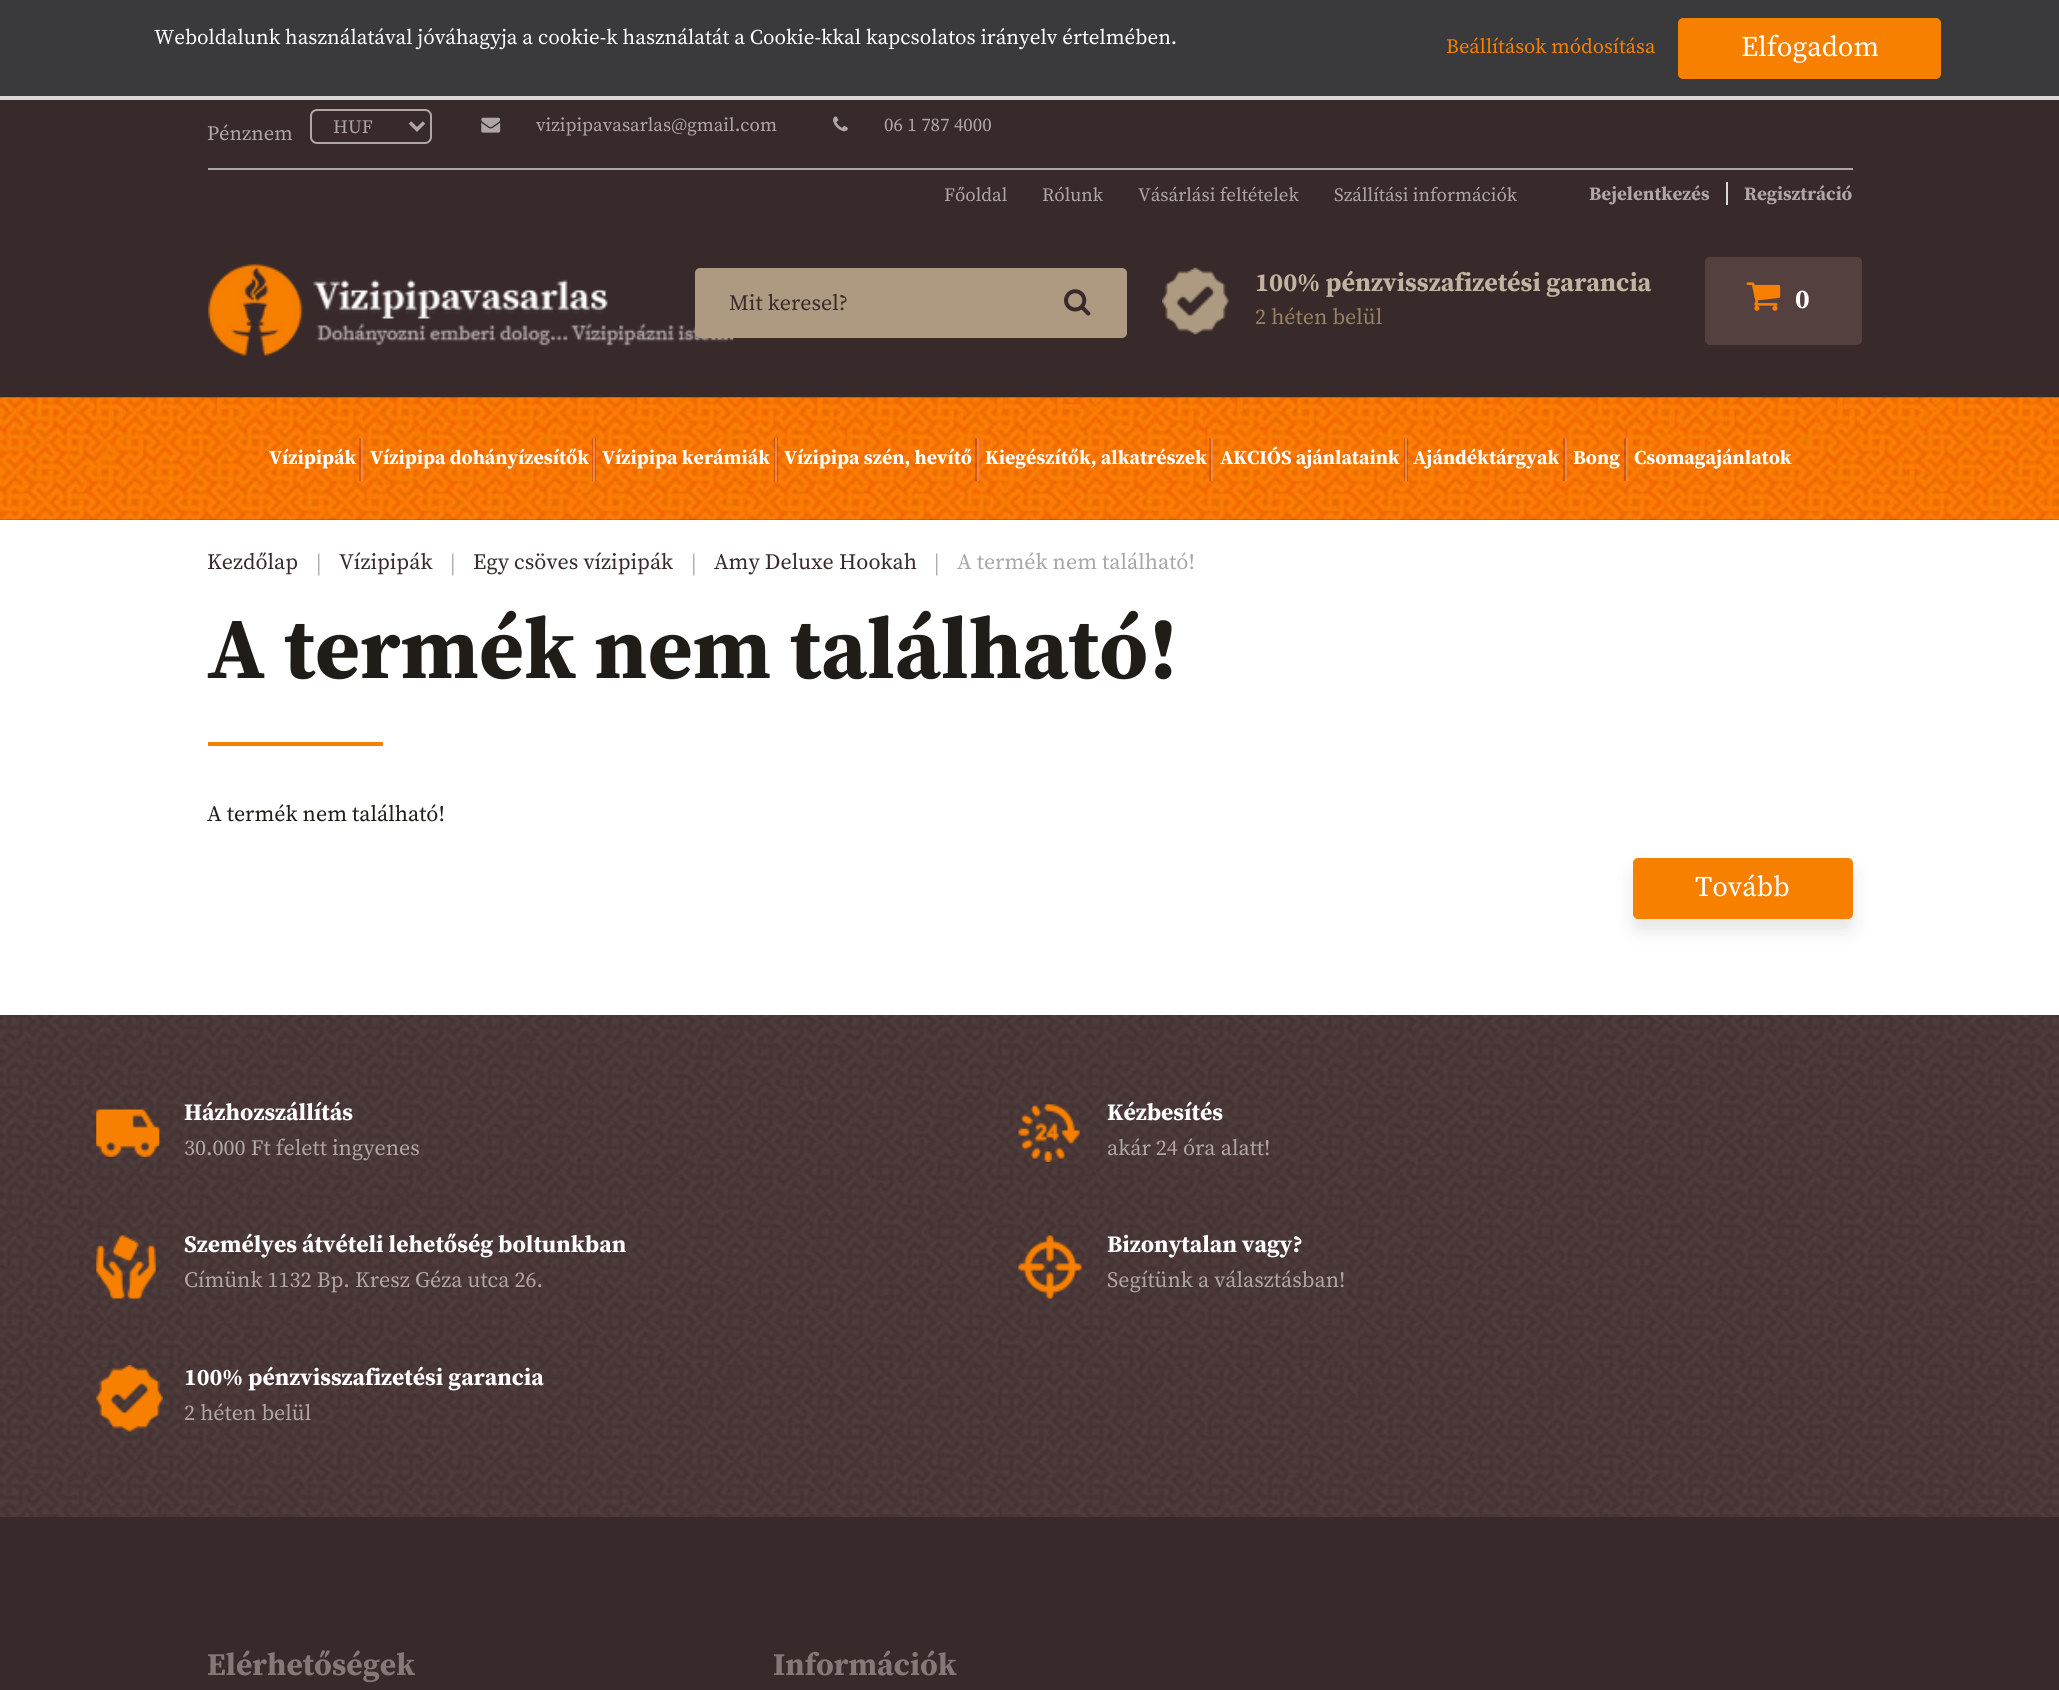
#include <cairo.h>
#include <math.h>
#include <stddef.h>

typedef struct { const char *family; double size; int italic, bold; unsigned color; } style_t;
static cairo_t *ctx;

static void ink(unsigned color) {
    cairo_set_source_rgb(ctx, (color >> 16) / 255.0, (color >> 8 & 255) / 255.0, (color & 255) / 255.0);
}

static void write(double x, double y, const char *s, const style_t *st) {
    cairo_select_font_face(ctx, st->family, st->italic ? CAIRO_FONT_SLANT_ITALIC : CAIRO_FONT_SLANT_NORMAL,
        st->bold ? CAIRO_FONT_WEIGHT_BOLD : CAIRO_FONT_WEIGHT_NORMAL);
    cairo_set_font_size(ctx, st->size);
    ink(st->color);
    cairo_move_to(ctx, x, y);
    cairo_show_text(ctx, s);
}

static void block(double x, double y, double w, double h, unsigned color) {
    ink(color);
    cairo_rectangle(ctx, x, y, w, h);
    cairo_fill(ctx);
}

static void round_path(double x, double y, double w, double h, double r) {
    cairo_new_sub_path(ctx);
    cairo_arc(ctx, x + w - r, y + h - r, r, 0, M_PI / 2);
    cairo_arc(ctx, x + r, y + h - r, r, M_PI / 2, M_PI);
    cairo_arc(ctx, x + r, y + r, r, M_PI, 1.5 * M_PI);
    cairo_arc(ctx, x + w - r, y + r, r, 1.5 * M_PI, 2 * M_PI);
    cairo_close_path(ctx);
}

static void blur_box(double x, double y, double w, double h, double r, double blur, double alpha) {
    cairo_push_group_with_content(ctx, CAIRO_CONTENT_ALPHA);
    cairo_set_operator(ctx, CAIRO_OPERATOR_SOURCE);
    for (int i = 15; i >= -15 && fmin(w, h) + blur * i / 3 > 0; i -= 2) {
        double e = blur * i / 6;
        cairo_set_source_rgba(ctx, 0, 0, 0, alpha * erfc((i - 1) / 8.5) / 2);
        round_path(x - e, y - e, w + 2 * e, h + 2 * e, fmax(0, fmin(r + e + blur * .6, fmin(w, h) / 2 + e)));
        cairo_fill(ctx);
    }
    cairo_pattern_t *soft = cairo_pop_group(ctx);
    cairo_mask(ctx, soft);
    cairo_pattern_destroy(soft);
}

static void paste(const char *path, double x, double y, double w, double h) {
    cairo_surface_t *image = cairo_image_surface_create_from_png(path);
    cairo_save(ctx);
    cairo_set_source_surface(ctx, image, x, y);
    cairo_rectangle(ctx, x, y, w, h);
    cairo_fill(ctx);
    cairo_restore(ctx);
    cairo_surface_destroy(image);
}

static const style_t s1 = {"Source Serif Pro", 21, 0, 0, 0xffffff};
static const style_t s2 = {"Source Serif Pro", 20.5, 0, 0, 0xf78000};
static const style_t s3 = {"Source Serif Pro", 28.5, 0, 0, 0xffffff};
static const style_t s4 = {"Source Serif Pro", 20.5, 0, 0, 0xafa6a6};
static const style_t s5 = {"Source Serif Pro", 18.9, 0, 0, 0xafa6a6};
static const style_t s6 = {"Source Serif Pro", 18.9, 0, 1, 0xafa6a6};
static const style_t s7 = {"Source Serif Pro", 22, 0, 0, 0x382a2a};
static const style_t s8 = {"Source Serif Pro", 26, 0, 1, 0xc2b2a0};
static const style_t s9 = {"Source Serif Pro", 22, 0, 0, 0x998063};
static const style_t s10 = {"Source Serif Pro", 27, 0, 1, 0xffffff};
static const style_t s11 = {"Source Serif Pro", 19.75, 0, 1, 0xffffff};
static const style_t s12 = {"Source Serif Pro", 22, 0, 0, 0xa7a7a7};
static const style_t s13 = {"Source Serif Pro", 86.6, 0, 1, 0x201c18};
static const style_t s14 = {"Source Serif Pro", 22, 0, 0, 0x201c18};
static const style_t s15 = {"Source Serif Pro", 23.6, 0, 1, 0xffffff};
static const style_t s16 = {"Source Serif Pro", 22, 0, 0, 0xafa6a6};
static const style_t s17 = {"Source Serif Pro", 31.5, 0, 1, 0x877878};

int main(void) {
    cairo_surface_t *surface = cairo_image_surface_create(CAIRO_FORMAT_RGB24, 2059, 1690);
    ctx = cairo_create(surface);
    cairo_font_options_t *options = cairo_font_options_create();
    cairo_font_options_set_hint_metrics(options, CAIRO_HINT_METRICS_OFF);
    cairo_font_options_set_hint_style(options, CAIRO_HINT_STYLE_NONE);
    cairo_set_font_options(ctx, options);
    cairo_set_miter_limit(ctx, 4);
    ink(0xffffff);
    cairo_paint(ctx);
    block(0, 0, 2059, 96, 0x3a393b);
    write(154, 44, "Weboldalunk használatával jóváhagyja a cookie-k használatát a Cookie-kkal kapcsolatos irányelv értelmében.", &s1);
    write(1446, 53, "Beállítások módosítása", &s2);
    round_path(1679, 19, 261, 59, 4);
    cairo_fill_preserve(ctx);
    cairo_stroke(ctx);
    write(1741, 56, "Elfogadom", &s3);
    block(0, 100, 2059, 420, 0x382a2a);
    block(0, 96, 2059, 4, 0xd7d7d7);
    write(207, 140, "Pénznem", &s4);
    round_path(311, 110, 120, 33, 6);
    cairo_stroke(ctx);
    cairo_new_path(ctx);
    cairo_move_to(ctx, 410, 122.5);
    cairo_line_to(ctx, 417, 129.5);
    cairo_line_to(ctx, 424, 122.5);
    cairo_set_line_width(ctx, 3.5);
    cairo_stroke(ctx);
    write(333, 133, "HUF", &s5);
    paste("pic1.png", 481, 117, 20, 16);
    write(536, 131, "vizipipavasarlas@gmail.com", &s5);
    paste("pic2.png", 833, 116, 15, 16);
    write(884, 131, "06 1 787 4000", &s5);
    block(208, 168, 1645, 2, 0xafa6a6);
    write(944, 201, "Főoldal", &s5);
    write(1042, 201, "Rólunk", &s5);
    write(1138, 201, "Vásárlási feltételek", &s5);
    write(1334, 201, "Szállítási információk", &s5);
    write(1589, 200, "Bejelentkezés", &s6);
    block(1726, 182, 2, 23, 0xdadada);
    write(1744, 200, "Regisztráció", &s6);
    paste("pic3.png", 208, 263, 526, 93);
    ink(0xae9981);
    round_path(695, 268, 432, 70, 5);
    cairo_fill(ctx);
    write(729, 310, "Mit keresel?", &s7);
    paste("pic4.png", 1064, 289, 27, 27);
    paste("pic5.png", 1162, 267, 67, 68);
    write(1255, 291, "100% pénzvisszafizetési garancia", &s8);
    write(1255, 324, "2 héten belül", &s9);
    ink(0x554040);
    round_path(1705, 257, 157, 88, 5);
    cairo_fill(ctx);
    paste("pic6.png", 1746, 282, 35, 29);
    write(1795, 308, "0", &s10);
    paste("pic7.png", 0, 397, 2059, 123);
    write(269, 464, "Vízipipák", &s11);
    cairo_set_source_rgba(ctx, 0.549, 0, 0, 0.25);
    cairo_rectangle(ctx, 359, 438, 4, 43);
    cairo_fill(ctx);
    cairo_set_source_rgba(ctx, 1, 1, 1, 0.3);
    cairo_rectangle(ctx, 361, 438, 2, 43);
    cairo_fill(ctx);
    write(370, 464, "Vízipipa dohányízesítők", &s11);
    cairo_set_source_rgba(ctx, 0.549, 0, 0, 0.25);
    cairo_rectangle(ctx, 592, 438, 4, 43);
    cairo_fill(ctx);
    cairo_set_source_rgba(ctx, 1, 1, 1, 0.3);
    cairo_rectangle(ctx, 593, 438, 2, 43);
    cairo_fill(ctx);
    write(602, 464, "Vízipipa kerámiák", &s11);
    cairo_set_source_rgba(ctx, 0.549, 0, 0, 0.25);
    cairo_rectangle(ctx, 774, 438, 4, 43);
    cairo_fill(ctx);
    cairo_set_source_rgba(ctx, 1, 1, 1, 0.3);
    cairo_rectangle(ctx, 775, 438, 2, 43);
    cairo_fill(ctx);
    write(784, 464, "Vízipipa szén, hevítő", &s11);
    cairo_set_source_rgba(ctx, 0.549, 0, 0, 0.25);
    cairo_rectangle(ctx, 975, 438, 4, 43);
    cairo_fill(ctx);
    cairo_set_source_rgba(ctx, 1, 1, 1, 0.3);
    cairo_rectangle(ctx, 977, 438, 2, 43);
    cairo_fill(ctx);
    write(985, 464, "Kiegészítők, alkatrészek", &s11);
    cairo_set_source_rgba(ctx, 0.549, 0, 0, 0.25);
    cairo_rectangle(ctx, 1209, 438, 4, 43);
    cairo_fill(ctx);
    cairo_set_source_rgba(ctx, 1, 1, 1, 0.3);
    cairo_rectangle(ctx, 1211, 438, 2, 43);
    cairo_fill(ctx);
    write(1220, 464, "AKCIÓS ajánlataink", &s11);
    cairo_set_source_rgba(ctx, 0.549, 0, 0, 0.25);
    cairo_rectangle(ctx, 1404, 438, 4, 43);
    cairo_fill(ctx);
    cairo_set_source_rgba(ctx, 1, 1, 1, 0.3);
    cairo_rectangle(ctx, 1405, 438, 2, 43);
    cairo_fill(ctx);
    write(1413, 464, "Ajándéktárgyak", &s11);
    cairo_set_source_rgba(ctx, 0.549, 0, 0, 0.25);
    cairo_rectangle(ctx, 1563, 438, 4, 43);
    cairo_fill(ctx);
    cairo_set_source_rgba(ctx, 1, 1, 1, 0.3);
    cairo_rectangle(ctx, 1565, 438, 2, 43);
    cairo_fill(ctx);
    write(1573, 464, "Bong", &s11);
    cairo_set_source_rgba(ctx, 0.549, 0, 0, 0.25);
    cairo_rectangle(ctx, 1624, 438, 4, 43);
    cairo_fill(ctx);
    cairo_set_source_rgba(ctx, 1, 1, 1, 0.3);
    cairo_rectangle(ctx, 1626, 438, 2, 43);
    cairo_fill(ctx);
    write(1634, 464, "Csomagajánlatok", &s11);
    write(207, 569, "Kezdőlap", &s7);
    write(316, 570, "|", &s12);
    write(339, 569, "Vízipipák", &s7);
    write(450, 570, "|", &s12);
    write(473, 569, "Egy csöves vízipipák", &s7);
    write(691, 570, "|", &s12);
    write(714, 569, "Amy Deluxe Hookah", &s7);
    write(934, 570, "|", &s12);
    write(957, 569, "A termék nem található!", &s12);
    write(207, 678, "A termék nem található!", &s13);
    block(208, 742, 175, 4, 0xf78000);
    write(207, 821, "A termék nem található!", &s14);
    ink(0x000000);
    blur_box(1633, 870, 220, 61, 5, 9, 0.1);
    ink(0xf78000);
    round_path(1634, 859, 218, 59, 4);
    cairo_fill_preserve(ctx);
    cairo_set_line_width(ctx, 2);
    cairo_stroke(ctx);
    write(1695, 896, "Tovább", &s3);
    paste("pic8.png", 0, 1015, 2059, 502);
    paste("pic9.png", 96, 1109, 64, 48);
    write(184, 1120, "Házhozszállítás", &s15);
    write(184, 1155, "30.000 Ft felett ingyenes", &s16);
    paste("pic10.png", 1018, 1104, 62, 58);
    write(1107, 1120, "Kézbesítés", &s15);
    write(1107, 1155, "akár 24 óra alatt!", &s16);
    paste("pic11.png", 96, 1235, 60, 64);
    write(184, 1252, "Személyes átvételi lehetőség boltunkban", &s15);
    write(184, 1287, "Címünk 1132 Bp. Kresz Géza utca 26.", &s16);
    paste("pic12.png", 1018, 1235, 64, 64);
    write(1107, 1252, "Bizonytalan vagy?", &s15);
    write(1107, 1287, "Segítünk a választásban!", &s16);
    paste("pic13.png", 96, 1365, 67, 67);
    write(184, 1385, "100% pénzvisszafizetési garancia", &s15);
    write(184, 1420, "2 héten belül", &s16);
    block(0, 1517, 2059, 173, 0x382a2a);
    write(207, 1675, "Elérhetőségek", &s17);
    write(773, 1675, "Információk", &s17);
    cairo_surface_write_to_png(surface, "screenshot.png");
    cairo_font_options_destroy(options);
    cairo_destroy(ctx);
    cairo_surface_destroy(surface);
    return 0;
}
